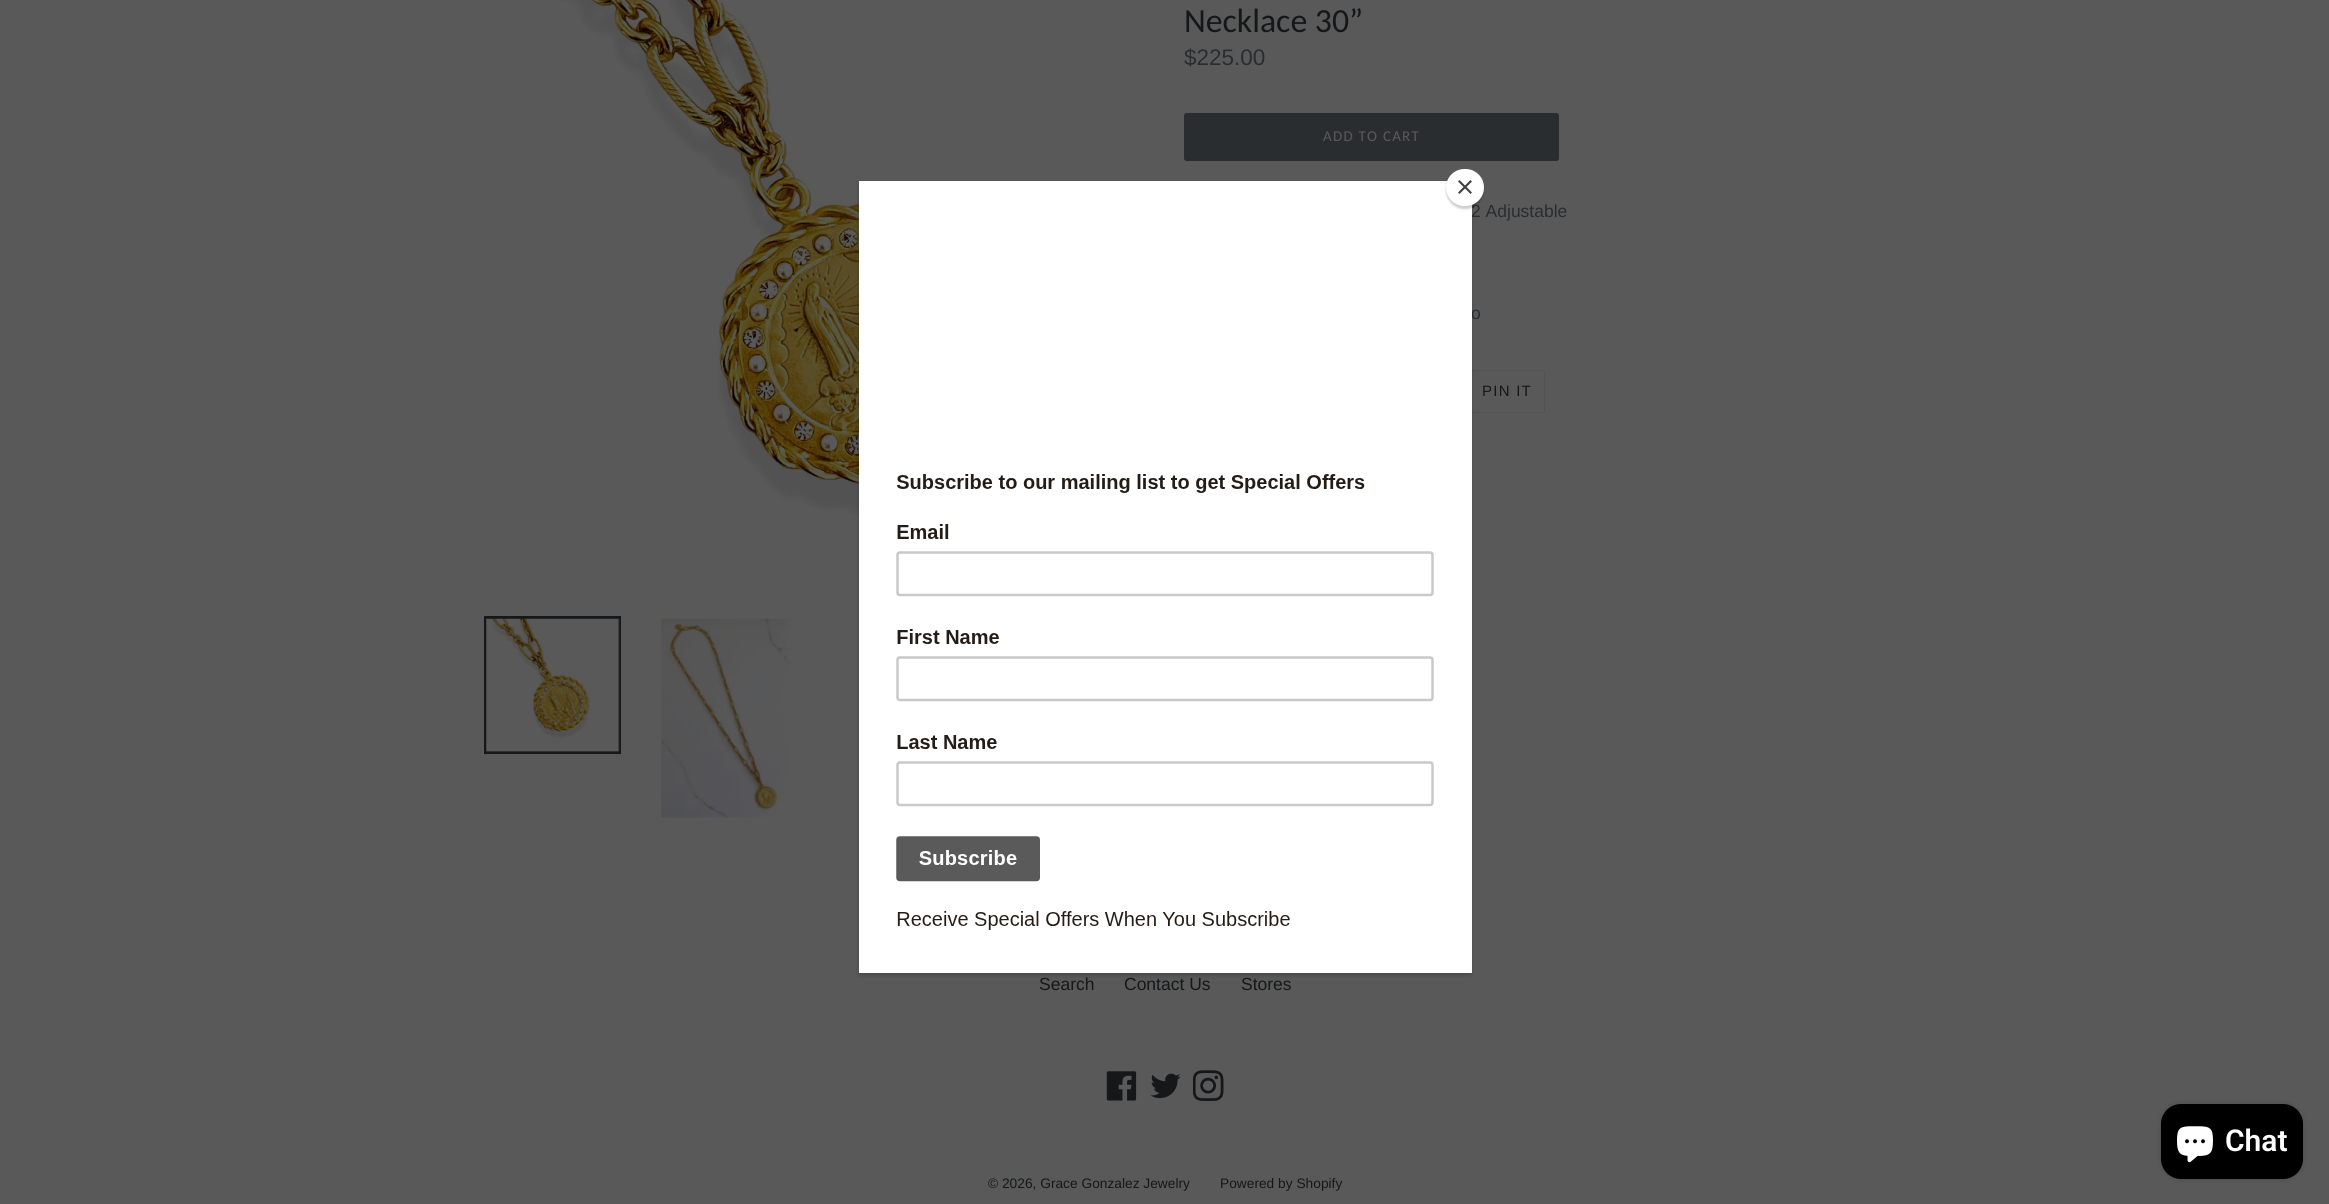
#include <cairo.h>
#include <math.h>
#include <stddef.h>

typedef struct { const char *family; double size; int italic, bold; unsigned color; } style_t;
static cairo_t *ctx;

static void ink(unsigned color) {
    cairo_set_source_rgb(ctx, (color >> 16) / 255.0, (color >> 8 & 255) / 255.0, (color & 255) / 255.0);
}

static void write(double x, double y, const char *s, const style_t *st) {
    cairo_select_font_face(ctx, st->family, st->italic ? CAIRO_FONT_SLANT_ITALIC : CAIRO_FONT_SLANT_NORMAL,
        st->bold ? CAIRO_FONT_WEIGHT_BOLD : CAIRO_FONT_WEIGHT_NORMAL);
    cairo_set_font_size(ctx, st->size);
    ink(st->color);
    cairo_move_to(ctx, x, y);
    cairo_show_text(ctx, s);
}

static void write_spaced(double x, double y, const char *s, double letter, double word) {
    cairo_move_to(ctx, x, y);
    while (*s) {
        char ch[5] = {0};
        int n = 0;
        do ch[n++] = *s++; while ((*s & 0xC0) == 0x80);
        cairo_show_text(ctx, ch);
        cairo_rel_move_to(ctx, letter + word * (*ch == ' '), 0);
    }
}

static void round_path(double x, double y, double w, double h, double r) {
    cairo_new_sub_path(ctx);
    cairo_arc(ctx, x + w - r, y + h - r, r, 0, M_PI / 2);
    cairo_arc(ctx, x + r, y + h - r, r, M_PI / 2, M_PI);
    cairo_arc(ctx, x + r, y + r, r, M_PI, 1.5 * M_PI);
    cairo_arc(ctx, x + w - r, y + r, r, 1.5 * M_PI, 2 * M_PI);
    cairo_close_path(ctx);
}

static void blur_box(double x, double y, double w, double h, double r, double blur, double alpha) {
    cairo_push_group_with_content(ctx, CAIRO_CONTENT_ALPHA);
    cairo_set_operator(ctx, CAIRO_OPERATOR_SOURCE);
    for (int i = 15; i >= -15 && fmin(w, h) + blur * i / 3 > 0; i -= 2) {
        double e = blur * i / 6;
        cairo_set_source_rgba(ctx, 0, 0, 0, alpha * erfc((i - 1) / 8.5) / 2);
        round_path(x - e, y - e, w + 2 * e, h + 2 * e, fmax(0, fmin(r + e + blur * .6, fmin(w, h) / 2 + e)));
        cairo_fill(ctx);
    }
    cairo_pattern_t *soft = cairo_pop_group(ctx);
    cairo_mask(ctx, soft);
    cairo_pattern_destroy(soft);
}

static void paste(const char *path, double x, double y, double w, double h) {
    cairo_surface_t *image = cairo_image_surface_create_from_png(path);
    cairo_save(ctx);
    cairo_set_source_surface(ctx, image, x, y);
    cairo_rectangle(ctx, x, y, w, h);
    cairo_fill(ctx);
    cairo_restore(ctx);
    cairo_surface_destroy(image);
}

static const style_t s1 = {"Carlito", 33.75, 0, 0, 0x151719};
static const style_t s2 = {"Liberation Sans", 22.5, 0, 0, 0x2a2d30};
static const style_t s3 = {"Liberation Sans", 17.5, 0, 0, 0x2a2d30};
static const style_t s4 = {"Liberation Sans", 17.5, 0, 0, 0x151719};
static const style_t s5 = {"Liberation Sans", 13.75, 0, 0, 0x151719};
static const style_t s6 = {"Roboto SemiBold", 30, 0, 0, 0xffffff};

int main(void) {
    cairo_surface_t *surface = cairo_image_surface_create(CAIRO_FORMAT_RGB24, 2329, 1204);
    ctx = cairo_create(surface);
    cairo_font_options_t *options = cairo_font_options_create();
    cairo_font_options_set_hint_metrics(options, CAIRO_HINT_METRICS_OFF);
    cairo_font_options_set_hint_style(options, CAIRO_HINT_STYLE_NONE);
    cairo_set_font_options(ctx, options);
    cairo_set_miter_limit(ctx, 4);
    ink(0x595959);
    cairo_paint(ctx);
    paste("pic1.png", 559, 0, 444, 515);
    cairo_rectangle(ctx, 485.5, 617.5, 134, 135);
    ink(0x151719);
    cairo_set_line_width(ctx, 3);
    cairo_stroke(ctx);
    paste("pic2.png", 486, 618, 134, 134);
    paste("pic3.png", 661, 618, 132, 200);
    write(1184, 32, "Necklace 30”", &s1);
    write(1184, 65, "$225.00", &s2);
    round_path(1184, 113, 375, 48, 2.5);
    cairo_fill(ctx);
    cairo_select_font_face(ctx, "Carlito", CAIRO_FONT_SLANT_NORMAL, CAIRO_FONT_WEIGHT_NORMAL);
    cairo_set_font_size(ctx, 15);
    ink(0x595959);
    write_spaced(1323, 141, "ADD TO CART", 1.25, 0);
    write(1471, 217, "2 Adjustable", &s3);
    write(1471, 319, "o", &s3);
    round_path(1438.5, 370.5, 106, 42, 2);
    ink(0x515252);
    cairo_set_line_width(ctx, 1);
    cairo_stroke(ctx);
    cairo_set_font_size(ctx, 15);
    ink(0x151719);
    write_spaced(1482, 396, "PIN IT", 1.25, 0);
    write(1039, 990, "Search", &s4);
    write(1124, 990, "Contact Us", &s4);
    write(1241, 990, "Stores", &s4);
    paste("pic4.png", 1106, 1071, 31, 30);
    paste("pic5.png", 1150, 1073, 31, 26);
    paste("pic6.png", 1193, 1070, 31, 31);
    write(988, 1188, "© 2026, Grace Gonzalez Jewelry", &s5);
    write(1220, 1188, "Powered by Shopify", &s5);
    ink(0x000000);
    blur_box(859, 184, 612, 791, 0, 2.5, 0.2);
    paste("pic7.png", 859, 181, 613, 792);
    blur_box(1446, 171, 38, 38, 19, 1, 0.2);
    ink(0xffffff);
    round_path(1446, 169, 38, 37, 18.5);
    cairo_fill(ctx);
    ink(0x414141);
    cairo_new_path(ctx);
    cairo_move_to(ctx, 1470.5, 180);
    cairo_line_to(ctx, 1472, 181.5);
    cairo_line_to(ctx, 1459.5, 194);
    cairo_line_to(ctx, 1458, 192.5);
    cairo_close_path(ctx);
    cairo_fill(ctx);
    cairo_new_path(ctx);
    cairo_move_to(ctx, 1458, 181.5);
    cairo_line_to(ctx, 1459.5, 180);
    cairo_line_to(ctx, 1472, 192.5);
    cairo_line_to(ctx, 1470.5, 194);
    cairo_close_path(ctx);
    cairo_fill(ctx);
    ink(0x000000);
    blur_box(2161, 1104, 142, 75, 20, 3, 0.15);
    ink(0x000000);
    round_path(2161, 1104, 142, 75, 20);
    cairo_fill(ctx);
    paste("pic8.png", 2177, 1126, 36, 37);
    write(2225, 1151, "Chat", &s6);
    cairo_surface_write_to_png(surface, "screenshot.png");
    cairo_font_options_destroy(options);
    cairo_destroy(ctx);
    cairo_surface_destroy(surface);
    return 0;
}
